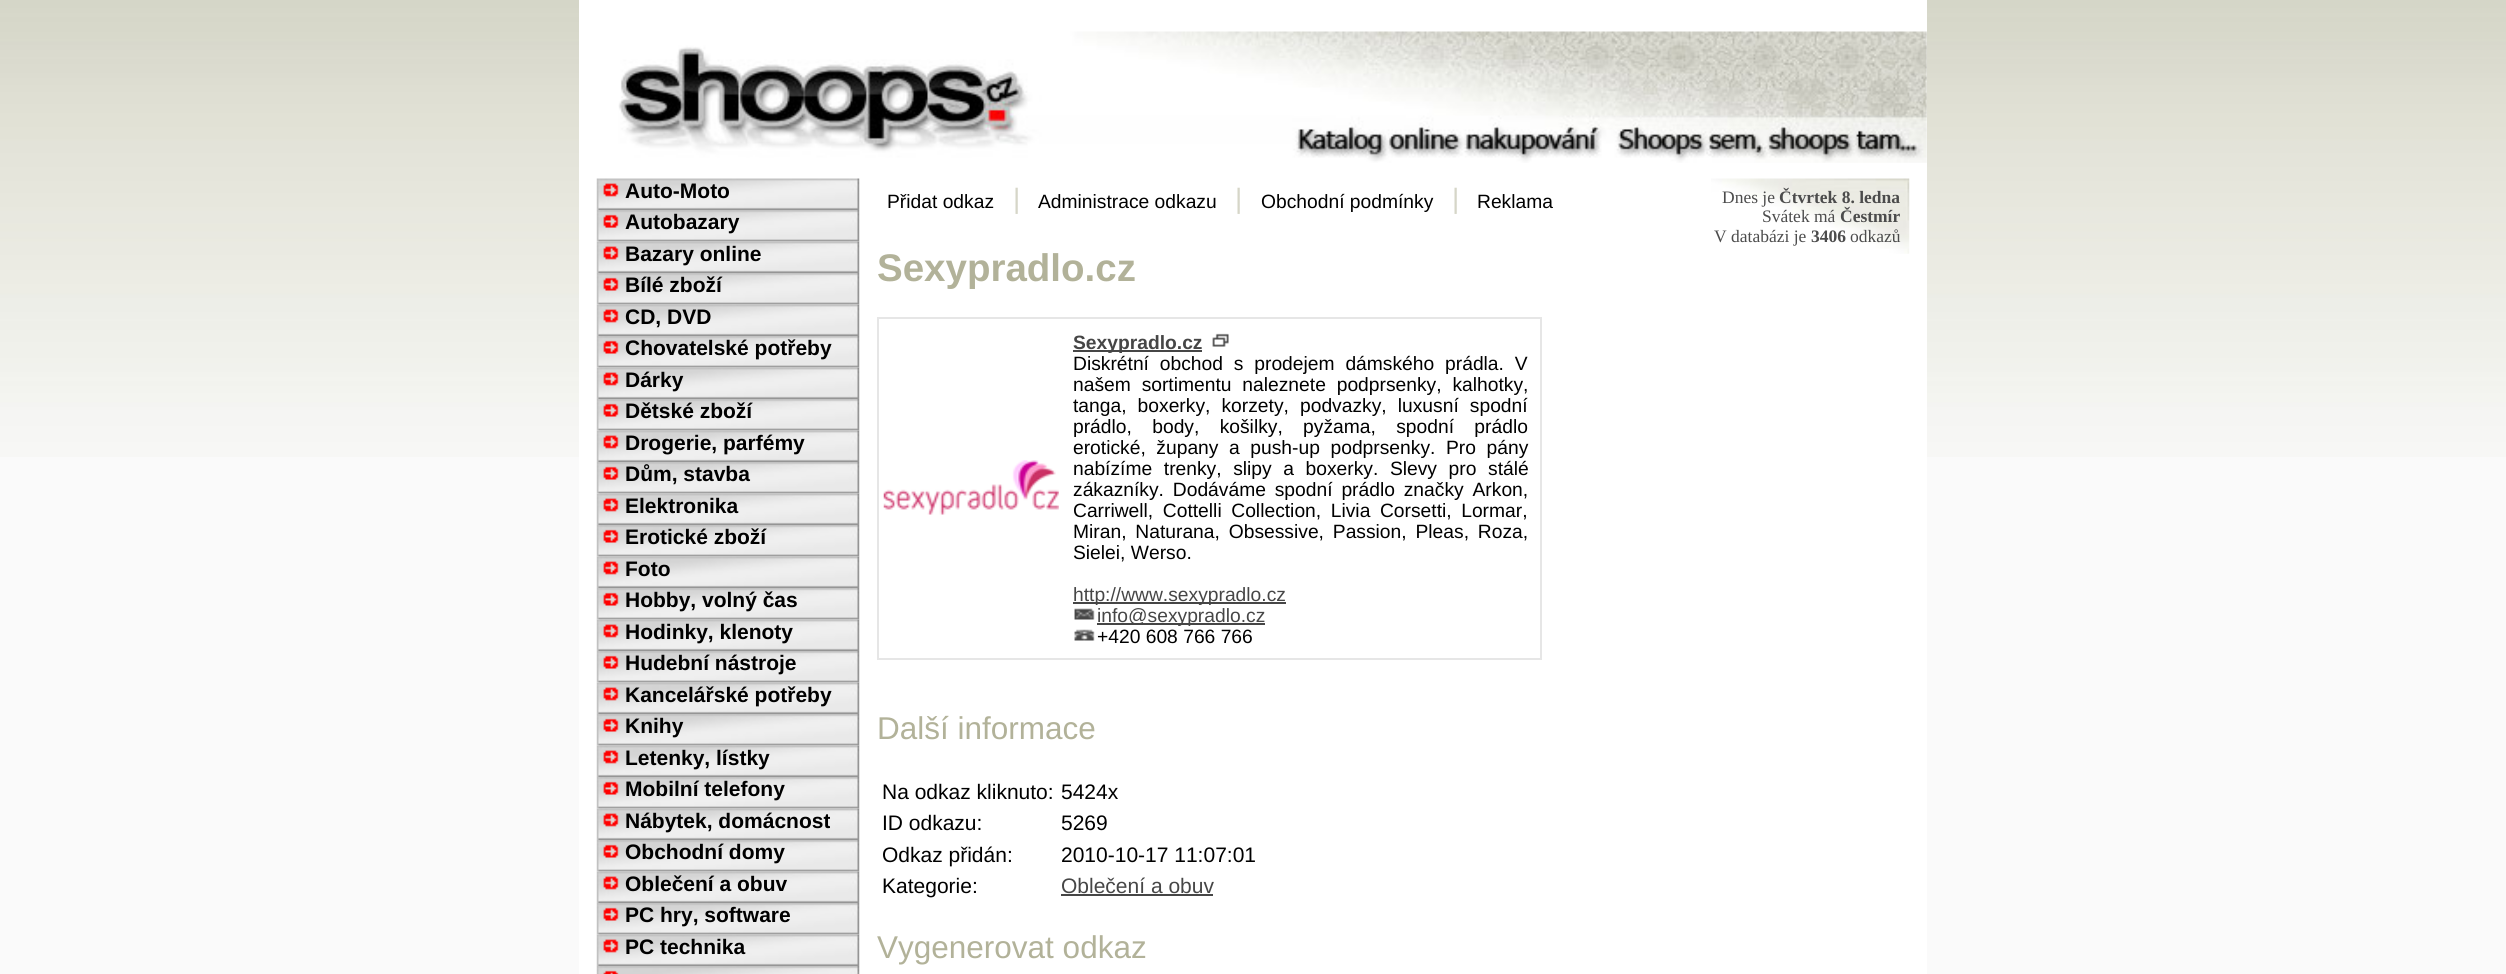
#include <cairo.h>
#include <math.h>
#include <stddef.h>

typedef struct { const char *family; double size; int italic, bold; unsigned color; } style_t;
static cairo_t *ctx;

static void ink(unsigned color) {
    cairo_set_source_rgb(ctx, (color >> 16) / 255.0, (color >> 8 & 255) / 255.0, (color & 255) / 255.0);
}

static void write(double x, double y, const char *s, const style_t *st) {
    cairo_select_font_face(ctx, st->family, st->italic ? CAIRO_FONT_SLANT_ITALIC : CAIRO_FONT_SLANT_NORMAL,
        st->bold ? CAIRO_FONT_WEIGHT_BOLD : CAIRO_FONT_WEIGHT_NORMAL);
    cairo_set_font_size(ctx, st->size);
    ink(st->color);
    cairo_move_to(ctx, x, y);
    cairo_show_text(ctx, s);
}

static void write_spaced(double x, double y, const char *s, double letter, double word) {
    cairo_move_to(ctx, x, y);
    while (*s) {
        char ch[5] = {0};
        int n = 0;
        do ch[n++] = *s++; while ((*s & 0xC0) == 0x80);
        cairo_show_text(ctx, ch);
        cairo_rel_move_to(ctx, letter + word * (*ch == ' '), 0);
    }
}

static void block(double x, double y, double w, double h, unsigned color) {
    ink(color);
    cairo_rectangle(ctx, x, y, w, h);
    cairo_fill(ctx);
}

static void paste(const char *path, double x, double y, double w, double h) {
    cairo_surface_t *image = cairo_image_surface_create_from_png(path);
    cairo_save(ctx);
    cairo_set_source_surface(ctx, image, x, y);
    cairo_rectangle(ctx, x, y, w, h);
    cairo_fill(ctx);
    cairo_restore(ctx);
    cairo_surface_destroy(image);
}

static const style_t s1 = {"Liberation Sans", 21, 0, 1, 0x000000};
static const style_t s2 = {"Liberation Sans", 19.25, 0, 0, 0x000000};
static const style_t s3 = {"Liberation Sans", 28, 0, 0, 0xd6d6c8};
static const style_t s4 = {"Liberation Serif", 17.5, 0, 0, 0x4c4c4c};
static const style_t s5 = {"Liberation Serif", 17.5, 0, 1, 0x4c4c4c};
static const style_t s6 = {"Liberation Sans", 38.5, 0, 1, 0xb2b299};
static const style_t s7 = {"Liberation Sans", 19.25, 0, 1, 0x464646};
static const style_t s8 = {"Liberation Sans", 19.25, 0, 0, 0x464646};
static const style_t s9 = {"Liberation Sans", 31.5, 0, 0, 0xb2b299};
static const style_t s10 = {"Liberation Sans", 21, 0, 0, 0x000000};
static const style_t s11 = {"Liberation Sans", 21, 0, 0, 0x464646};

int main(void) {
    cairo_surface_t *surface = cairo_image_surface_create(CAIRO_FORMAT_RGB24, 2506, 974);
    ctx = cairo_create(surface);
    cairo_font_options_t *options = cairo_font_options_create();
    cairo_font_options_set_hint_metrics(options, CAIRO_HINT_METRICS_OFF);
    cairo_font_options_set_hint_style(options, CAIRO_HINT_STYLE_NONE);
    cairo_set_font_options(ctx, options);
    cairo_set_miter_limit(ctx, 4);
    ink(0xfafafa);
    cairo_paint(ctx);
    paste("pic1.png", 0, 0, 2506, 457);
    block(579, 0, 1348, 974, 0xffffff);
    paste("pic2.png", 618, 31, 1309, 132);
    paste("pic3.png", 596, 178, 264, 32);
    paste("pic4.png", 603, 183, 16, 14);
    write(625, 198, "Auto-Moto", &s1);
    paste("pic5.png", 596, 210, 264, 32);
    paste("pic6.png", 603, 214, 16, 14);
    write(625, 229, "Autobazary", &s1);
    paste("pic7.png", 596, 241, 264, 32);
    paste("pic4.png", 603, 246, 16, 14);
    write(625, 261, "Bazary online", &s1);
    paste("pic8.png", 596, 273, 264, 32);
    paste("pic9.png", 603, 277, 16, 14);
    write(625, 292, "Bílé zboží", &s1);
    paste("pic7.png", 596, 304, 264, 32);
    paste("pic4.png", 603, 309, 16, 14);
    write(625, 324, "CD, DVD", &s1);
    paste("pic8.png", 596, 336, 264, 32);
    paste("pic9.png", 603, 340, 16, 14);
    write(625, 355, "Chovatelské potřeby", &s1);
    paste("pic7.png", 596, 367, 264, 32);
    paste("pic4.png", 603, 372, 16, 14);
    write(625, 387, "Dárky", &s1);
    paste("pic8.png", 596, 399, 264, 32);
    paste("pic9.png", 603, 403, 16, 14);
    write(625, 418, "Dětské zboží", &s1);
    paste("pic7.png", 596, 430, 264, 32);
    paste("pic4.png", 603, 435, 16, 14);
    write(625, 450, "Drogerie, parfémy", &s1);
    paste("pic8.png", 596, 462, 264, 32);
    paste("pic9.png", 603, 466, 16, 14);
    write(625, 481, "Dům, stavba", &s1);
    paste("pic7.png", 596, 493, 264, 32);
    paste("pic4.png", 603, 498, 16, 14);
    write(625, 513, "Elektronika", &s1);
    paste("pic8.png", 596, 525, 264, 32);
    paste("pic9.png", 603, 529, 16, 14);
    write(625, 544, "Erotické zboží", &s1);
    paste("pic7.png", 596, 556, 264, 32);
    paste("pic4.png", 603, 561, 16, 14);
    write(625, 576, "Foto", &s1);
    paste("pic8.png", 596, 588, 264, 32);
    paste("pic9.png", 603, 592, 16, 14);
    write(625, 607, "Hobby, volný čas", &s1);
    paste("pic7.png", 596, 619, 264, 32);
    paste("pic4.png", 603, 624, 16, 14);
    write(625, 639, "Hodinky, klenoty", &s1);
    paste("pic8.png", 596, 651, 264, 32);
    paste("pic9.png", 603, 655, 16, 14);
    write(625, 670, "Hudební nástroje", &s1);
    paste("pic7.png", 596, 682, 264, 32);
    paste("pic4.png", 603, 687, 16, 14);
    write(625, 702, "Kancelářské potřeby", &s1);
    paste("pic8.png", 596, 714, 264, 32);
    paste("pic9.png", 603, 718, 16, 14);
    write(625, 733, "Knihy", &s1);
    paste("pic7.png", 596, 745, 264, 32);
    paste("pic4.png", 603, 750, 16, 14);
    write(625, 765, "Letenky, lístky", &s1);
    paste("pic8.png", 596, 777, 264, 32);
    paste("pic9.png", 603, 781, 16, 14);
    write(625, 796, "Mobilní telefony", &s1);
    paste("pic7.png", 596, 808, 264, 32);
    paste("pic4.png", 603, 813, 16, 14);
    write(625, 828, "Nábytek, domácnost", &s1);
    paste("pic8.png", 596, 840, 264, 32);
    paste("pic9.png", 603, 844, 16, 14);
    write(625, 859, "Obchodní domy", &s1);
    paste("pic7.png", 596, 871, 264, 32);
    paste("pic4.png", 603, 876, 16, 14);
    write(625, 891, "Oblečení a obuv", &s1);
    paste("pic8.png", 596, 903, 264, 32);
    paste("pic9.png", 603, 907, 16, 14);
    write(625, 922, "PC hry, software", &s1);
    paste("pic7.png", 596, 934, 264, 32);
    paste("pic4.png", 603, 939, 16, 14);
    write(625, 954, "PC technika", &s1);
    paste("pic10.png", 596, 966, 264, 8);
    paste("pic11.png", 603, 970, 16, 4);
    write(887, 208, "Přidat odkaz", &s2);
    write(1013, 208, "|", &s3);
    write(1038, 208, "Administrace odkazu", &s2);
    write(1235, 208, "|", &s3);
    write(1261, 208, "Obchodní podmínky", &s2);
    write(1452, 208, "|", &s3);
    write(1477, 208, "Reklama", &s2);
    paste("pic12.png", 1711, 178, 199, 76);
    write(1722, 203, "Dnes je", &s4);
    write(1779, 203, "Čtvrtek 8. ledna", &s5);
    write(1762, 222, "Svátek má", &s4);
    write(1840, 222, "Čestmír", &s5);
    write(1714, 242, "V databázi je", &s4);
    write(1811, 242, "3406", &s5);
    write(1850, 242, "odkazů", &s4);
    write(877, 281, "Sexypradlo.cz", &s6);
    cairo_rectangle(ctx, 878, 318, 663, 341);
    ink(0xe6e6e6);
    cairo_stroke(ctx);
    paste("pic13.png", 883, 460, 176, 55);
    block(1073, 350, 129, 2, 0x464646);
    write(1073, 349, "Sexypradlo.cz", &s7);
    paste("pic14.png", 1212, 333, 17, 14);
    cairo_select_font_face(ctx, "Liberation Sans", CAIRO_FONT_SLANT_NORMAL, CAIRO_FONT_WEIGHT_NORMAL);
    ink(0x000000);
    write_spaced(1073, 370, "Diskrétní obchod s prodejem dámského prádla. V", 0, 5.5);
    write_spaced(1073, 391, "našem sortimentu naleznete podprsenky, kalhotky,", 0, 5.5);
    write_spaced(1073, 412, "tanga, boxerky, korzety, podvazky, luxusní spodní", 0, 5.75);
    write_spaced(1073, 433, "prádlo, body, košilky, pyžama, spodní prádlo", 0, 15);
    write_spaced(1073, 454, "erotické, župany a push-up podprsenky. Pro pány", 0, 5.25);
    write_spaced(1073, 475, "nabízíme trenky, slipy a boxerky. Slevy pro stálé", 0, 6.25);
    write_spaced(1073, 496, "zákazníky. Dodáváme spodní prádlo značky Arkon,", 0, 3.5);
    write_spaced(1073, 517, "Carriwell, Cottelli Collection, Livia Corsetti, Lormar,", 0, 4.25);
    write_spaced(1073, 538, "Miran, Naturana, Obsessive, Passion, Pleas, Roza,", 0, 3.5);
    write(1073, 559, "Sielei, Werso.", &s2);
    block(1073, 602, 213, 2, 0x464646);
    write(1073, 601, "http://www.sexypradlo.cz", &s8);
    paste("pic15.png", 1074, 608, 21, 12);
    block(1097, 623, 168, 2, 0x464646);
    write(1097, 622, "info@sexypradlo.cz", &s8);
    paste("pic16.png", 1074, 629, 21, 12);
    write(1097, 643, "+420 608 766 766", &s2);
    write(877, 739, "Další informace", &s9);
    write(882, 799, "Na odkaz kliknuto:", &s10);
    write(1061, 799, "5424x", &s10);
    write(882, 830, "ID odkazu:", &s10);
    write(1061, 830, "5269", &s10);
    write(882, 862, "Odkaz přidán:", &s10);
    write(1061, 862, "2010-10-17 11:07:01", &s10);
    write(882, 893, "Kategorie:", &s10);
    write(1061, 893, "Oblečení a obuv", &s11);
    block(1061, 894, 152, 2, 0x464646);
    write(877, 958, "Vygenerovat odkaz", &s9);
    cairo_surface_write_to_png(surface, "screenshot.png");
    cairo_font_options_destroy(options);
    cairo_destroy(ctx);
    cairo_surface_destroy(surface);
    return 0;
}
